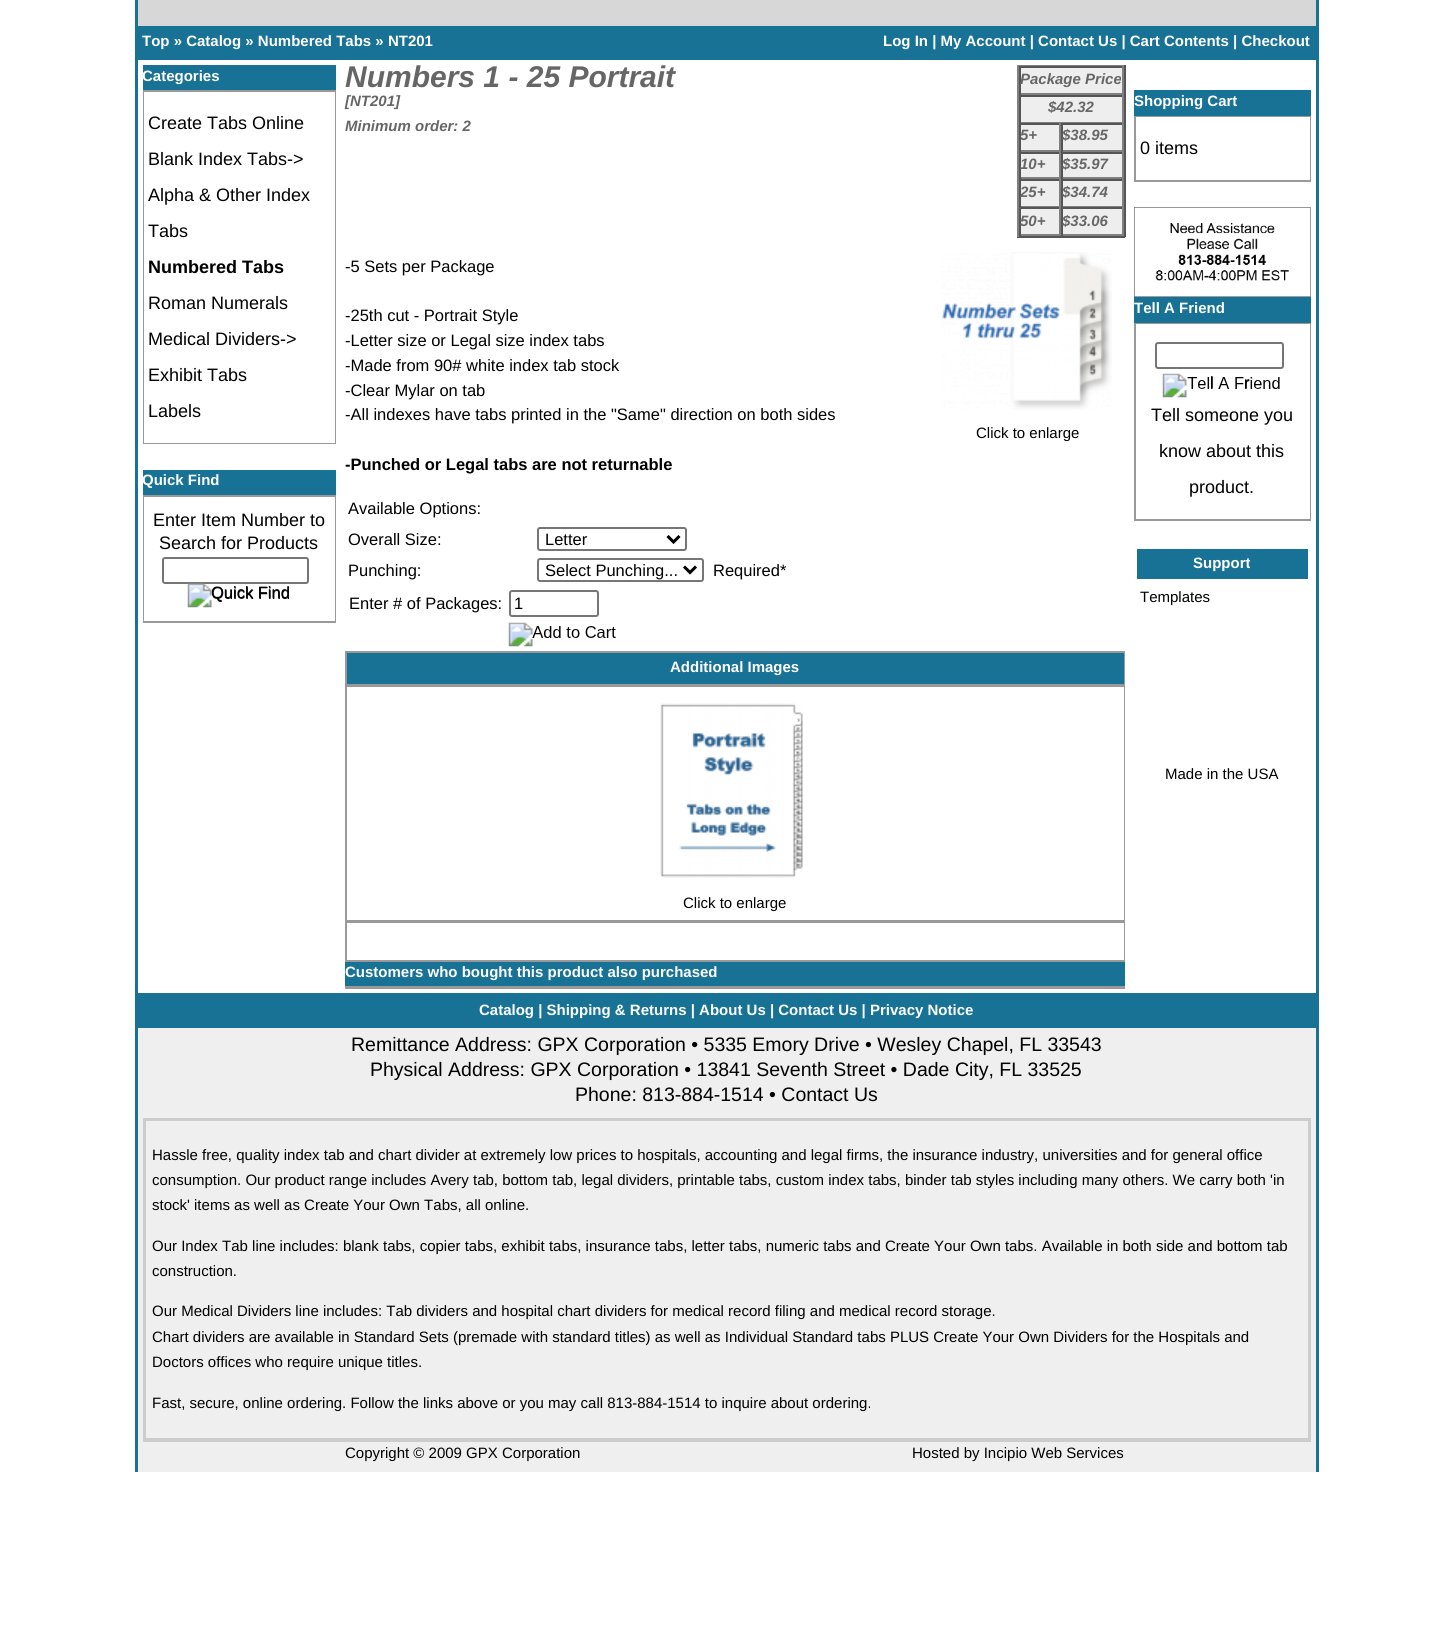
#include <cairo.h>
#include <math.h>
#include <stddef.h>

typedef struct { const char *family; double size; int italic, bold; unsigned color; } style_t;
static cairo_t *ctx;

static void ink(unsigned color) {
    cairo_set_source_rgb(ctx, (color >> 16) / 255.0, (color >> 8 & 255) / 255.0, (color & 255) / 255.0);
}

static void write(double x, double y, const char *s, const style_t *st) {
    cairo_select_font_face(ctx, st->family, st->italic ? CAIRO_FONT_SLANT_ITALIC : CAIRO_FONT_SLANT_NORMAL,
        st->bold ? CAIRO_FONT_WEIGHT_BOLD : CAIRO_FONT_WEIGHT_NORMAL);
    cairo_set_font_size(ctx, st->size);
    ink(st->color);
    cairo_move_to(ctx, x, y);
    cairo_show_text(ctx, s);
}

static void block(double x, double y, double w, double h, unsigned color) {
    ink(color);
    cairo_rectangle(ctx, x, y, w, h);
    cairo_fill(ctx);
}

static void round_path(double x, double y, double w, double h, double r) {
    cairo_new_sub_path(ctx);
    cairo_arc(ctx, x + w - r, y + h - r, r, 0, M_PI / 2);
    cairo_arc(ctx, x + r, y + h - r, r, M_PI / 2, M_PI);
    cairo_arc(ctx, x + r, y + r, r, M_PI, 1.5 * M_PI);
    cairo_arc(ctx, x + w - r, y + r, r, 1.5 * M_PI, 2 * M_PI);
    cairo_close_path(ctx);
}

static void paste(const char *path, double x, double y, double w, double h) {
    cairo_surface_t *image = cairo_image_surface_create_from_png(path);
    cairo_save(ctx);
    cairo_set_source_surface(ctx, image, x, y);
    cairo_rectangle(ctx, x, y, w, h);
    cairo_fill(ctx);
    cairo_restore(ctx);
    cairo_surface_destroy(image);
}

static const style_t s1 = {"Liberation Sans", 15, 0, 1, 0xffffff};
static const style_t s2 = {"Liberation Sans", 18, 0, 0, 0x000000};
static const style_t s3 = {"Liberation Sans", 18, 0, 1, 0x000000};
static const style_t s4 = {"Liberation Sans", 16.5, 0, 0, 0x000000};
static const style_t s5 = {"Liberation Sans", 30, 1, 1, 0x666666};
static const style_t s6 = {"Liberation Sans", 15, 1, 1, 0x666666};
static const style_t s7 = {"Liberation Sans", 16.5, 0, 1, 0x000000};
static const style_t s8 = {"Liberation Sans", 15, 0, 0, 0x000000};
static const style_t s9 = {"Liberation Sans", 19.5, 0, 0, 0x000000};

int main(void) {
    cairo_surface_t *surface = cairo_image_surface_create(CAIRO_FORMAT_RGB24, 1451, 1651);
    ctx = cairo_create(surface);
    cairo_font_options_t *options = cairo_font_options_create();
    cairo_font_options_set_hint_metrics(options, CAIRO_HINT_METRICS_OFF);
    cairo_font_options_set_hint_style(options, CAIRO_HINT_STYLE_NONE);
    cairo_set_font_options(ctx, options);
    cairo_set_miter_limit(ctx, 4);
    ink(0xffffff);
    cairo_paint(ctx);
    block(138, 1028, 1178, 444, 0xefefef);
    block(1316, 0, 3, 1472, 0x177295);
    block(135, 0, 3, 1472, 0x177295);
    block(138, 0, 1178, 26, 0xd7d7d7);
    block(138, 26, 1178, 34, 0x177295);
    write(142, 46, "Top » Catalog » Numbered Tabs » NT201", &s1);
    write(883, 46, "Log In | My Account | Contact Us | Cart Contents | Checkout", &s1);
    block(143, 65, 193, 25, 0x177295);
    write(142, 81, "Categories", &s1);
    block(143, 90, 193, 354, 0x999999);
    block(144, 92, 191, 351, 0xffffff);
    write(148, 129, "Create Tabs Online", &s2);
    write(148, 165, "Blank Index Tabs->", &s2);
    write(148, 201, "Alpha & Other Index", &s2);
    write(148, 237, "Tabs", &s2);
    write(148, 273, "Numbered Tabs", &s3);
    write(148, 309, "Roman Numerals", &s2);
    write(148, 345, "Medical Dividers->", &s2);
    write(148, 381, "Exhibit Tabs", &s2);
    write(148, 417, "Labels", &s2);
    block(143, 470, 193, 25, 0x177295);
    write(142, 485, "Quick Find", &s1);
    block(143, 495, 193, 128, 0x999999);
    block(144, 497, 191, 124, 0xffffff);
    write(153, 526, "Enter Item Number to", &s2);
    write(159, 549, "Search for Products", &s2);
    round_path(163, 558, 145, 25, 2);
    ink(0x767676);
    cairo_stroke(ctx);
    paste("pic1.png", 187, 583, 103, 25);
    write(211, 598, "Quick Find", &s4);
    write(345, 87, "Numbers 1 - 25 Portrait", &s5);
    write(345, 106, "[NT201]", &s6);
    write(345, 131, "Minimum order: 2", &s6);
    block(1017, 65, 108, 1, 0x808080);
    block(1124, 65, 2, 172, 0x555555);
    block(1017, 236, 108, 2, 0x555555);
    block(1017, 65, 2, 172, 0x808080);
    block(1021, 68, 101, 25, 0xeeeeee);
    block(1019, 66, 105, 2, 0x555555);
    block(1122, 66, 2, 29, 0x808080);
    block(1019, 93, 105, 2, 0x808080);
    block(1019, 66, 2, 29, 0x555555);
    write(1020, 84, "Package Price", &s6);
    block(1021, 97, 101, 25, 0xeeeeee);
    block(1019, 95, 105, 2, 0x555555);
    block(1122, 95, 2, 28, 0x808080);
    block(1019, 122, 105, 1, 0x808080);
    block(1019, 95, 2, 28, 0x555555);
    write(1048, 112, "$42.32", &s6);
    block(1021, 125, 38, 25, 0xeeeeee);
    block(1019, 123, 105, 2, 0x555555);
    block(1059, 123, 2, 29, 0x808080);
    block(1019, 150, 42, 2, 0x808080);
    block(1019, 123, 2, 29, 0x555555);
    write(1020, 140, "5+", &s6);
    block(1063, 125, 59, 25, 0xeeeeee);
    block(1122, 123, 2, 29, 0x808080);
    block(1061, 150, 63, 2, 0x808080);
    block(1061, 123, 2, 29, 0x555555);
    write(1062, 140, "$38.95", &s6);
    block(1021, 154, 38, 23, 0xeeeeee);
    block(1019, 152, 105, 2, 0x555555);
    block(1059, 152, 2, 27, 0x808080);
    block(1019, 177, 42, 2, 0x808080);
    block(1019, 152, 2, 27, 0x555555);
    write(1020, 169, "10+", &s6);
    block(1063, 154, 59, 23, 0xeeeeee);
    block(1122, 152, 2, 27, 0x808080);
    block(1061, 177, 63, 2, 0x808080);
    block(1061, 152, 2, 27, 0x555555);
    write(1062, 169, "$35.97", &s6);
    block(1021, 181, 38, 25, 0xeeeeee);
    block(1019, 179, 105, 2, 0x555555);
    block(1059, 179, 2, 28, 0x808080);
    block(1019, 206, 42, 1, 0x808080);
    block(1019, 179, 2, 28, 0x555555);
    write(1020, 197, "25+", &s6);
    block(1063, 181, 59, 25, 0xeeeeee);
    block(1122, 179, 2, 28, 0x808080);
    block(1061, 206, 63, 1, 0x808080);
    block(1061, 179, 2, 28, 0x555555);
    write(1062, 197, "$34.74", &s6);
    block(1021, 209, 38, 25, 0xeeeeee);
    block(1019, 207, 105, 2, 0x555555);
    block(1059, 207, 2, 29, 0x808080);
    block(1019, 234, 42, 2, 0x808080);
    block(1019, 207, 2, 29, 0x555555);
    write(1020, 226, "50+", &s6);
    block(1063, 209, 59, 25, 0xeeeeee);
    block(1122, 207, 2, 29, 0x808080);
    block(1061, 234, 63, 2, 0x808080);
    block(1061, 207, 2, 29, 0x555555);
    write(1062, 226, "$33.06", &s6);
    write(345, 272, "-5 Sets per Package", &s4);
    write(345, 321, "-25th cut - Portrait Style", &s4);
    write(345, 346, "-Letter size or Legal size index tabs", &s4);
    write(345, 371, "-Made from 90# white index tab stock", &s4);
    write(345, 396, "-Clear Mylar on tab", &s4);
    write(345, 420, "-All indexes have tabs printed in the \"Same\" direction on both sides", &s4);
    write(345, 470, "-Punched or Legal tabs are not returnable", &s7);
    paste("pic2.png", 942, 252, 170, 158);
    write(976, 438, "Click to enlarge", &s8);
    write(348, 514, "Available Options:", &s4);
    write(348, 545, "Overall Size:", &s4);
    round_path(538, 528, 148, 22, 2);
    ink(0x767676);
    cairo_stroke(ctx);
    cairo_new_path(ctx);
    cairo_move_to(ctx, 667.5, 536);
    cairo_line_to(ctx, 673.5, 542);
    cairo_line_to(ctx, 679.5, 536);
    ink(0x000000);
    cairo_set_line_width(ctx, 3);
    cairo_stroke(ctx);
    write(545, 545, "Letter", &s4);
    write(348, 576, "Punching:", &s4);
    round_path(538, 559, 165, 22, 2);
    ink(0x767676);
    cairo_set_line_width(ctx, 2);
    cairo_stroke(ctx);
    cairo_new_path(ctx);
    cairo_move_to(ctx, 684, 566.5);
    cairo_line_to(ctx, 690, 572.5);
    cairo_line_to(ctx, 696, 566.5);
    ink(0x000000);
    cairo_set_line_width(ctx, 3);
    cairo_stroke(ctx);
    write(545, 576, "Select Punching...", &s4);
    write(713, 576, "Required*", &s4);
    write(349, 609, "Enter # of Packages:", &s4);
    round_path(510, 591, 88, 25, 2);
    ink(0x767676);
    cairo_set_line_width(ctx, 2);
    cairo_stroke(ctx);
    write(514, 609, "1", &s4);
    paste("pic3.png", 508, 622, 108, 25);
    block(345, 651, 780, 311, 0x999999);
    block(347, 653, 777, 31, 0x177295);
    write(670, 672, "Additional Images", &s1);
    block(347, 687, 777, 233, 0xffffff);
    paste("pic4.png", 660, 703, 143, 175);
    write(683, 908, "Click to enlarge", &s8);
    block(347, 923, 777, 37, 0xffffff);
    block(345, 962, 780, 24, 0x177295);
    write(345, 977, "Customers who bought this product also purchased", &s1);
    block(345, 986, 780, 3, 0x999999);
    block(1134, 90, 177, 26, 0x177295);
    write(1134, 106, "Shopping Cart", &s1);
    block(1134, 116, 177, 66, 0x999999);
    block(1136, 117, 174, 63, 0xffffff);
    write(1140, 154, "0 items", &s2);
    paste("pic5.png", 1134, 207, 177, 90);
    block(1134, 297, 177, 26, 0x177295);
    write(1134, 313, "Tell A Friend", &s1);
    block(1134, 323, 177, 198, 0x999999);
    block(1136, 324, 174, 195, 0xffffff);
    round_path(1156, 343, 127, 25, 2);
    ink(0x767676);
    cairo_stroke(ctx);
    paste("pic6.png", 1162, 373, 118, 25);
    write(1210, 388, "l", &s4);
    write(1244, 388, "r", &s4);
    write(1151, 421, "Tell someone you", &s2);
    write(1159, 457, "know about this", &s2);
    write(1189, 493, "product.", &s2);
    block(1137, 549, 171, 30, 0x177295);
    write(1193, 568, "Support", &s1);
    write(1140, 602, "Templates", &s8);
    write(1165, 779, "Made in the USA", &s8);
    block(138, 993, 1178, 35, 0x177295);
    write(479, 1015, "Catalog | Shipping & Returns | About Us | Contact Us | Privacy Notice", &s1);
    write(351, 1051, "Remittance Address: GPX Corporation • 5335 Emory Drive • Wesley Chapel, FL 33543", &s9);
    write(370, 1076, "Physical Address: GPX Corporation • 13841 Seventh Street • Dade City, FL 33525", &s9);
    write(575, 1101, "Phone: 813-884-1514 • Contact Us", &s9);
    cairo_rectangle(ctx, 144, 1119, 1166, 322);
    ink(0xcccccc);
    cairo_stroke(ctx);
    cairo_rectangle(ctx, 145, 1120, 1164, 319);
    cairo_stroke(ctx);
    write(152, 1160, "Hassle free, quality index tab and chart divider at extremely low prices to hospitals, accounting and legal firms, the insurance industry, universities and for general office", &s8);
    write(152, 1185, "consumption. Our product range includes Avery tab, bottom tab, legal dividers, printable tabs, custom index tabs, binder tab styles including many others. We carry both 'in", &s8);
    write(152, 1210, "stock' items as well as Create Your Own Tabs, all online.", &s8);
    write(152, 1251, "Our Index Tab line includes: blank tabs, copier tabs, exhibit tabs, insurance tabs, letter tabs, numeric tabs and Create Your Own tabs. Available in both side and bottom tab", &s8);
    write(152, 1276, "construction.", &s8);
    write(152, 1316, "Our Medical Dividers line includes: Tab dividers and hospital chart dividers for medical record filing and medical record storage.", &s8);
    write(152, 1342, "Chart dividers are available in Standard Sets (premade with standard titles) as well as Individual Standard tabs PLUS Create Your Own Dividers for the Hospitals and", &s8);
    write(152, 1367, "Doctors offices who require unique titles.", &s8);
    write(152, 1408, "Fast, secure, online ordering. Follow the links above or you may call 813-884-1514 to inquire about ordering.", &s8);
    write(345, 1458, "Copyright © 2009 GPX Corporation", &s8);
    write(912, 1458, "Hosted by Incipio Web Services", &s8);
    cairo_surface_write_to_png(surface, "screenshot.png");
    cairo_font_options_destroy(options);
    cairo_destroy(ctx);
    cairo_surface_destroy(surface);
    return 0;
}
